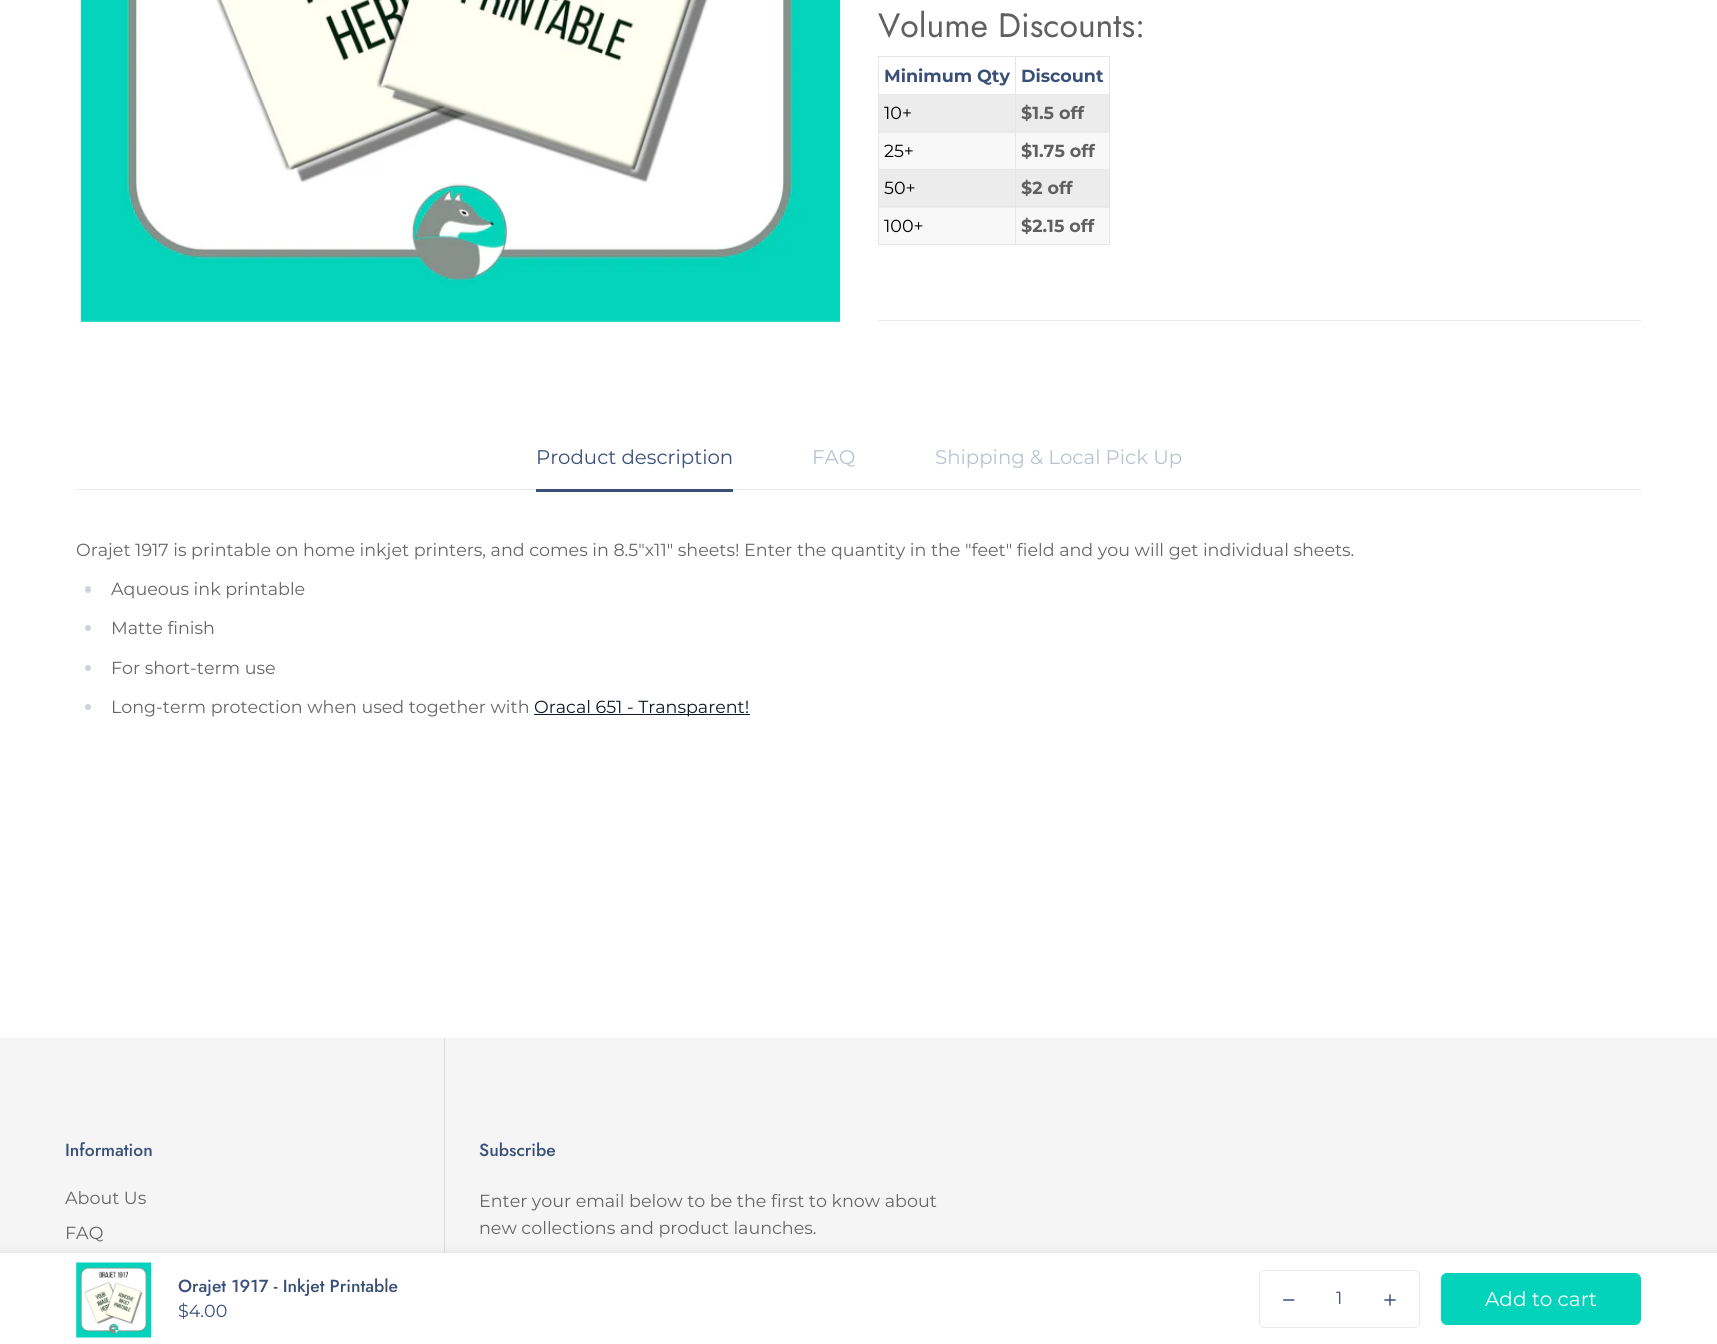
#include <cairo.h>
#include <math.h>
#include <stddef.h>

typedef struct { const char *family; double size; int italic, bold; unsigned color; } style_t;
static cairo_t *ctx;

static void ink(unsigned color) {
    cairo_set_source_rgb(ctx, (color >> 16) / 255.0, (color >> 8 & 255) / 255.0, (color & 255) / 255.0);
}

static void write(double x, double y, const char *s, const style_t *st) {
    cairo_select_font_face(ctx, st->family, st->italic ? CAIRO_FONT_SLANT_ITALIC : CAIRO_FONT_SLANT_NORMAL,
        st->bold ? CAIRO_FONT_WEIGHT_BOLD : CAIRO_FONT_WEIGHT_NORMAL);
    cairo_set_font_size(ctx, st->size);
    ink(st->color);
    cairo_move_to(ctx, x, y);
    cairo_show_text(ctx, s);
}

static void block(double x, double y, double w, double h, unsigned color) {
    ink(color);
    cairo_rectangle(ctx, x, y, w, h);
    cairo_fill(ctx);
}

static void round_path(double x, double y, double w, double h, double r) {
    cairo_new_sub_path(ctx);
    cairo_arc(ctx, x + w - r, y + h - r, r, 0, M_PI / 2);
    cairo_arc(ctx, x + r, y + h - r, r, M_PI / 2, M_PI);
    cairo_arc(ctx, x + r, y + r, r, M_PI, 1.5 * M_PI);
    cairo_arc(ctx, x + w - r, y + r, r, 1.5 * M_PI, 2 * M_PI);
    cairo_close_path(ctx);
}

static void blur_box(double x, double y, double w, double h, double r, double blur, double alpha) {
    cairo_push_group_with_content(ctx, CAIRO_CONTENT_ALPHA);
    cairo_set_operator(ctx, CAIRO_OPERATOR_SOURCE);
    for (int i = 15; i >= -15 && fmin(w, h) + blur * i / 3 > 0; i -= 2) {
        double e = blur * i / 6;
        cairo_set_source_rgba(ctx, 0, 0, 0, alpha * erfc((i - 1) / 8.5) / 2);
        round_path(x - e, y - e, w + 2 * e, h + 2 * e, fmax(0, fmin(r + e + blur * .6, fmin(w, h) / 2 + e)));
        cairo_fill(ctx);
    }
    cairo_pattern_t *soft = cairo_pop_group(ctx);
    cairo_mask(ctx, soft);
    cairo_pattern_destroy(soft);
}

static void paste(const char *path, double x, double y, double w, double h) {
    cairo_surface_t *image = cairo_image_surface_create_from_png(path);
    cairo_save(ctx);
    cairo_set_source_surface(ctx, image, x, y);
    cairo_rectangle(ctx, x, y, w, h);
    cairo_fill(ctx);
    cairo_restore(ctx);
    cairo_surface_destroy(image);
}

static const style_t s1 = {"Jost", 33.75, 0, 0, 0x606060};
static const style_t s2 = {"Montserrat", 17.5, 0, 1, 0x3a5078};
static const style_t s3 = {"Montserrat", 17.5, 0, 0, 0x000000};
static const style_t s4 = {"Montserrat", 17.5, 0, 1, 0x606060};
static const style_t s5 = {"Jost Medium", 17.5, 0, 0, 0x3a5078};
static const style_t s6 = {"Montserrat", 17.5, 0, 0, 0x3a5078};
static const style_t s7 = {"Montserrat", 20, 0, 0, 0xffffff};
static const style_t s8 = {"Montserrat", 19.75, 0, 0, 0x3a5078};
static const style_t s9 = {"Montserrat", 19.75, 0, 0, 0xbac2d0};
static const style_t s10 = {"Montserrat", 17.5, 0, 0, 0x666666};
static const style_t s11 = {"Montserrat", 17.5, 0, 0, 0x111827};

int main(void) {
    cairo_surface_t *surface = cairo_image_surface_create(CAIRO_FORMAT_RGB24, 1717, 1344);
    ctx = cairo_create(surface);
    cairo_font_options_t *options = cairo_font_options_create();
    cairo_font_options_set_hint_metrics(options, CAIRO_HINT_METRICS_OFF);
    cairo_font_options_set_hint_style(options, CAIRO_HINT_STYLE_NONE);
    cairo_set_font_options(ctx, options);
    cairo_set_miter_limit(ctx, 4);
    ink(0xffffff);
    cairo_paint(ctx);
    paste("pic1.png", 81, 0, 759, 322);
    write(878, 37, "Volume Discounts:", &s1);
    block(1015, 56, 95, 1, 0xe6e6e6);
    block(1015, 94, 95, 1, 0xe6e6e6);
    block(879, 95, 230, 38, 0xececec);
    block(1015, 131, 95, 1, 0xe6e6e6);
    block(879, 133, 230, 36, 0xf8f8f8);
    block(1015, 169, 95, 1, 0xe6e6e6);
    block(879, 170, 230, 38, 0xececec);
    block(1015, 206, 95, 1, 0xe6e6e6);
    block(879, 208, 230, 36, 0xf8f8f8);
    block(1109, 206, 1, 39, 0xe6e6e6);
    block(1015, 244, 95, 1, 0xe6e6e6);
    block(1015, 206, 1, 39, 0xe6e6e6);
    block(878, 206, 138, 1, 0xe6e6e6);
    block(1015, 169, 1, 39, 0xe6e6e6);
    block(878, 169, 138, 1, 0xe6e6e6);
    block(1015, 131, 1, 39, 0xe6e6e6);
    block(878, 131, 138, 1, 0xe6e6e6);
    block(1015, 94, 1, 39, 0xe6e6e6);
    block(878, 94, 138, 1, 0xe6e6e6);
    block(1015, 56, 1, 39, 0xe6e6e6);
    block(878, 56, 138, 1, 0xe6e6e6);
    block(878, 244, 138, 1, 0xe6e6e6);
    block(878, 206, 1, 39, 0xe6e6e6);
    block(878, 169, 1, 39, 0xe6e6e6);
    block(878, 131, 1, 39, 0xe6e6e6);
    block(878, 94, 1, 39, 0xe6e6e6);
    block(878, 56, 1, 39, 0xe6e6e6);
    write(884, 82, "Minimum Qty", &s2);
    block(1109, 169, 1, 39, 0xe6e6e6);
    block(1109, 131, 1, 39, 0xe6e6e6);
    block(1109, 94, 1, 39, 0xe6e6e6);
    block(1109, 56, 1, 39, 0xe6e6e6);
    write(1021, 82, "Discount", &s2);
    write(884, 119, "10+", &s3);
    write(1021, 119, "$1.5 off", &s4);
    write(884, 157, "25+", &s3);
    write(1021, 157, "$1.75 off", &s4);
    write(884, 194, "50+", &s3);
    write(1021, 194, "$2 off", &s4);
    write(884, 232, "100+", &s3);
    write(1021, 232, "$2.15 off", &s4);
    block(878, 320, 763, 1, 0xebebeb);
    block(0, 1038, 1717, 215, 0xf5f5f5);
    block(444, 1038, 1, 215, 0xdedede);
    ink(0x000000);
    blur_box(0, 1253, 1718, 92, 0, 6, 0.09);
    block(0, 1253, 1717, 91, 0xffffff);
    paste("pic2.png", 76, 1262, 76, 76);
    write(178, 1292, "Orajet 1917 - Inkjet Printable", &s5);
    write(178, 1317, "$4.00", &s6);
    round_path(1259.5, 1270.5, 160, 57, 4.5);
    ink(0xebebeb);
    cairo_set_line_width(ctx, 1);
    cairo_stroke(ctx);
    paste("pic3.png", 1283, 1299, 12, 2);
    write(1336, 1304, "1", &s6);
    paste("pic4.png", 1384, 1294, 12, 12);
    ink(0x03d3bb);
    round_path(1441.5, 1273.5, 199, 51, 5.5);
    cairo_fill_preserve(ctx);
    cairo_stroke(ctx);
    write(1485, 1306, "Add to cart", &s7);
    block(76, 489, 1565, 1, 0xebebeb);
    write(536, 464, "Product description", &s8);
    block(536, 489, 197, 3, 0x3a5078);
    write(812, 464, "FAQ", &s9);
    write(935, 464, "Shipping & Local Pick Up", &s9);
    write(76, 556, "Orajet 1917 is printable on home inkjet printers, and comes in 8.5\"x11\" sheets! Enter the quantity in the \"feet\" field and you will get individual sheets.", &s10);
    ink(0xd1d5db);
    round_path(85, 586, 6, 7, 3);
    cairo_fill(ctx);
    write(111, 595, "Aqueous ink printable", &s10);
    ink(0xd1d5db);
    cairo_new_path(ctx);
    cairo_arc(ctx, 88, 628, 3, 0, 2 * M_PI);
    cairo_fill(ctx);
    write(111, 634, "Matte finish", &s10);
    ink(0xd1d5db);
    cairo_new_path(ctx);
    cairo_arc(ctx, 88, 668, 3, 0, 2 * M_PI);
    cairo_fill(ctx);
    write(111, 674, "For short-term use", &s10);
    ink(0xd1d5db);
    cairo_new_path(ctx);
    cairo_arc(ctx, 88, 707, 3, 0, 2 * M_PI);
    cairo_fill(ctx);
    write(111, 713, "Long-term protection when used together with", &s10);
    block(534, 714, 216, 1, 0x111827);
    write(534, 713, "Oracal 651 - Transparent!", &s11);
    write(65, 1156, "Information", &s5);
    write(65, 1204, "About Us", &s10);
    write(65, 1239, "FAQ", &s10);
    write(479, 1156, "Subscribe", &s5);
    write(479, 1207, "Enter your email below to be the first to know about", &s10);
    write(479, 1234, "new collections and product launches.", &s10);
    cairo_surface_write_to_png(surface, "screenshot.png");
    cairo_font_options_destroy(options);
    cairo_destroy(ctx);
    cairo_surface_destroy(surface);
    return 0;
}
